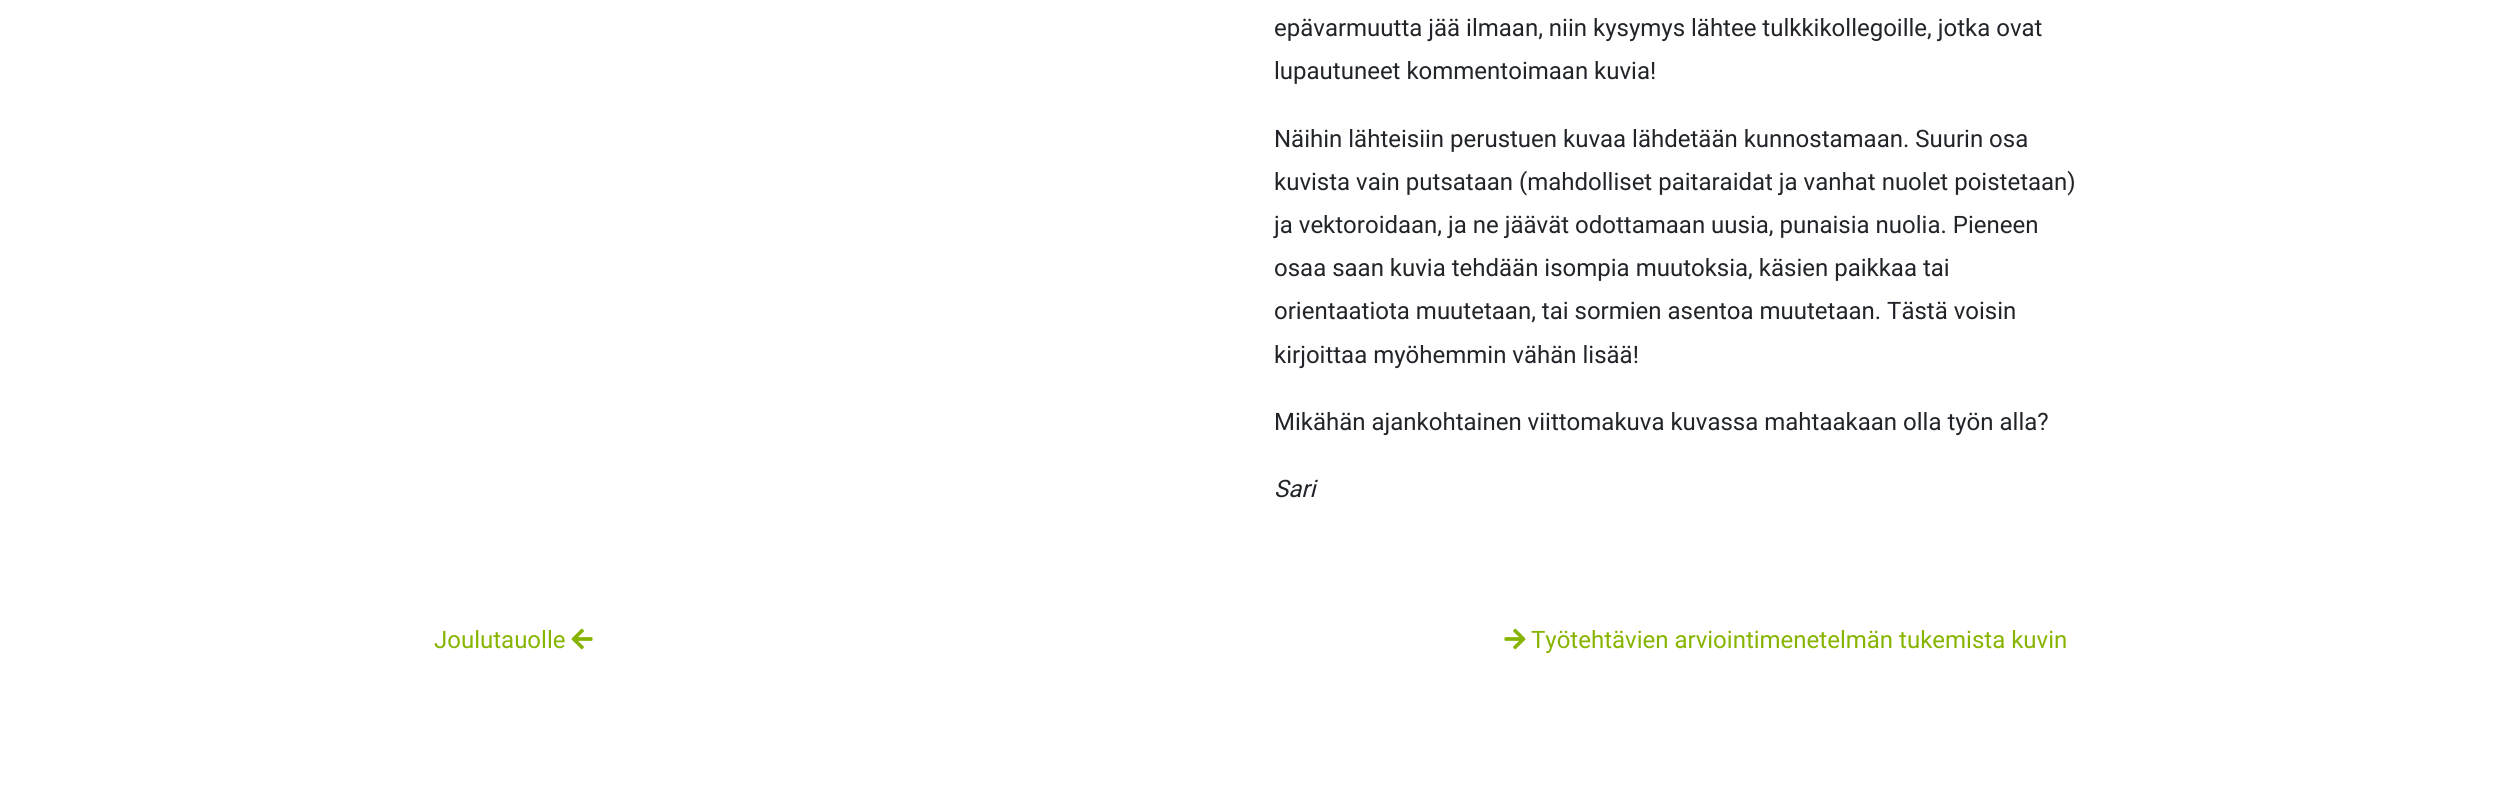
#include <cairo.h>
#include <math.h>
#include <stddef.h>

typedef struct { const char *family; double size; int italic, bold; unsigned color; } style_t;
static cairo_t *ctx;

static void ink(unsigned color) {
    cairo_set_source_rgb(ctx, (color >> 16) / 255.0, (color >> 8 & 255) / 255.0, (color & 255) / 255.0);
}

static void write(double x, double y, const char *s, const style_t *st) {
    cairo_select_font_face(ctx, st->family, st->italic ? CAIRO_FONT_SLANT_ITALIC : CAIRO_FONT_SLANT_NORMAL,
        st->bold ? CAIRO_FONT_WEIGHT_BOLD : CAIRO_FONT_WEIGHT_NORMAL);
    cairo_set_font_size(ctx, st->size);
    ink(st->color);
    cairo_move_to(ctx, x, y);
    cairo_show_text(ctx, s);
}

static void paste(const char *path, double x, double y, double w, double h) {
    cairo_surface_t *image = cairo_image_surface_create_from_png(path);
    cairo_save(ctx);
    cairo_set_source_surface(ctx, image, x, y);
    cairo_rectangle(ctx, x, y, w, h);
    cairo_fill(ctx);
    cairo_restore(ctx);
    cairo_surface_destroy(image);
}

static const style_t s1 = {"Roboto", 24, 0, 0, 0x212529};
static const style_t s2 = {"Roboto", 24, 1, 0, 0x212529};
static const style_t s3 = {"Roboto", 24, 0, 0, 0x87b400};

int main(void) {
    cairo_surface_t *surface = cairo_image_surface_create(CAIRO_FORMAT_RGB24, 2503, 788);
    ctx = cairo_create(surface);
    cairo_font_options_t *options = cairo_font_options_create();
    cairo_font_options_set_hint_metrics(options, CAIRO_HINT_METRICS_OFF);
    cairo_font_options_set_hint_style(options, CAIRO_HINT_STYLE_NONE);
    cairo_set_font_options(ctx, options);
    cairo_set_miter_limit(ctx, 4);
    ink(0xffffff);
    cairo_paint(ctx);
    write(1274, 36, "epävarmuutta jää ilmaan, niin kysymys lähtee tulkkikollegoille, jotka ovat", &s1);
    write(1274, 79, "lupautuneet kommentoimaan kuvia!", &s1);
    write(1274, 147, "Näihin lähteisiin perustuen kuvaa lähdetään kunnostamaan. Suurin osa", &s1);
    write(1274, 190, "kuvista vain putsataan (mahdolliset paitaraidat ja vanhat nuolet poistetaan)", &s1);
    write(1274, 233, "ja vektoroidaan, ja ne jäävät odottamaan uusia, punaisia nuolia. Pieneen", &s1);
    write(1274, 276, "osaa saan kuvia tehdään isompia muutoksia, käsien paikkaa tai", &s1);
    write(1274, 319, "orientaatiota muutetaan, tai sormien asentoa muutetaan. Tästä voisin", &s1);
    write(1274, 363, "kirjoittaa myöhemmin vähän lisää!", &s1);
    write(1274, 430, "Mikähän ajankohtainen viittomakuva kuvassa mahtaakaan olla työn alla?", &s1);
    write(1274, 497, "Sari", &s2);
    write(434, 648, "Joulutauolle", &s3);
    paste("pic1.png", 571, 628, 22, 22);
    paste("pic2.png", 1504, 628, 22, 22);
    write(1531, 648, "Työtehtävien arviointimenetelmän tukemista kuvin", &s3);
    cairo_surface_write_to_png(surface, "screenshot.png");
    cairo_font_options_destroy(options);
    cairo_destroy(ctx);
    cairo_surface_destroy(surface);
    return 0;
}
